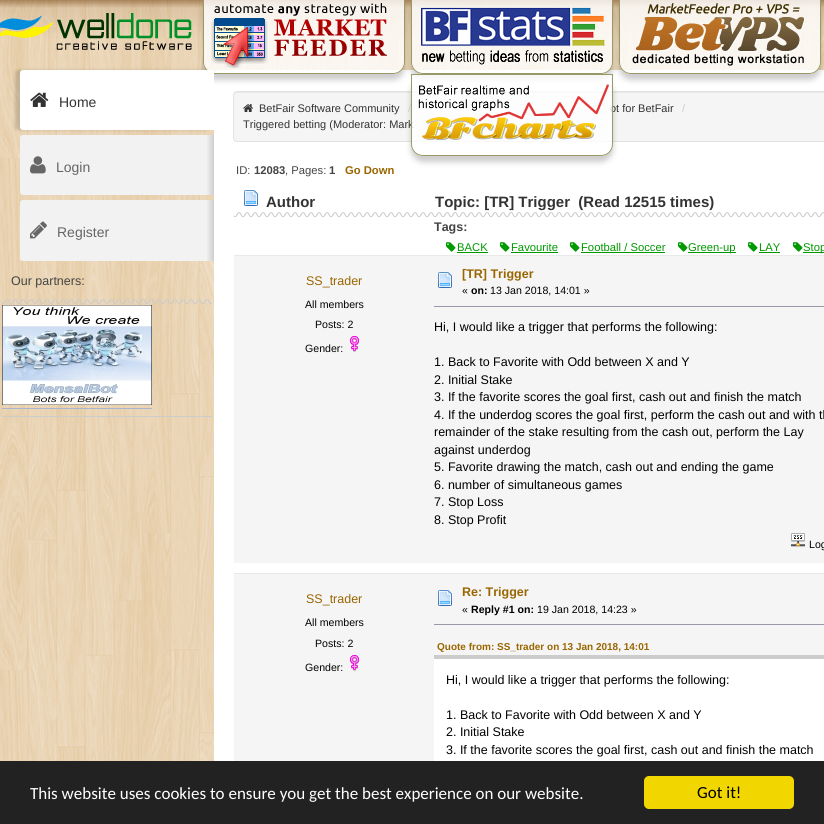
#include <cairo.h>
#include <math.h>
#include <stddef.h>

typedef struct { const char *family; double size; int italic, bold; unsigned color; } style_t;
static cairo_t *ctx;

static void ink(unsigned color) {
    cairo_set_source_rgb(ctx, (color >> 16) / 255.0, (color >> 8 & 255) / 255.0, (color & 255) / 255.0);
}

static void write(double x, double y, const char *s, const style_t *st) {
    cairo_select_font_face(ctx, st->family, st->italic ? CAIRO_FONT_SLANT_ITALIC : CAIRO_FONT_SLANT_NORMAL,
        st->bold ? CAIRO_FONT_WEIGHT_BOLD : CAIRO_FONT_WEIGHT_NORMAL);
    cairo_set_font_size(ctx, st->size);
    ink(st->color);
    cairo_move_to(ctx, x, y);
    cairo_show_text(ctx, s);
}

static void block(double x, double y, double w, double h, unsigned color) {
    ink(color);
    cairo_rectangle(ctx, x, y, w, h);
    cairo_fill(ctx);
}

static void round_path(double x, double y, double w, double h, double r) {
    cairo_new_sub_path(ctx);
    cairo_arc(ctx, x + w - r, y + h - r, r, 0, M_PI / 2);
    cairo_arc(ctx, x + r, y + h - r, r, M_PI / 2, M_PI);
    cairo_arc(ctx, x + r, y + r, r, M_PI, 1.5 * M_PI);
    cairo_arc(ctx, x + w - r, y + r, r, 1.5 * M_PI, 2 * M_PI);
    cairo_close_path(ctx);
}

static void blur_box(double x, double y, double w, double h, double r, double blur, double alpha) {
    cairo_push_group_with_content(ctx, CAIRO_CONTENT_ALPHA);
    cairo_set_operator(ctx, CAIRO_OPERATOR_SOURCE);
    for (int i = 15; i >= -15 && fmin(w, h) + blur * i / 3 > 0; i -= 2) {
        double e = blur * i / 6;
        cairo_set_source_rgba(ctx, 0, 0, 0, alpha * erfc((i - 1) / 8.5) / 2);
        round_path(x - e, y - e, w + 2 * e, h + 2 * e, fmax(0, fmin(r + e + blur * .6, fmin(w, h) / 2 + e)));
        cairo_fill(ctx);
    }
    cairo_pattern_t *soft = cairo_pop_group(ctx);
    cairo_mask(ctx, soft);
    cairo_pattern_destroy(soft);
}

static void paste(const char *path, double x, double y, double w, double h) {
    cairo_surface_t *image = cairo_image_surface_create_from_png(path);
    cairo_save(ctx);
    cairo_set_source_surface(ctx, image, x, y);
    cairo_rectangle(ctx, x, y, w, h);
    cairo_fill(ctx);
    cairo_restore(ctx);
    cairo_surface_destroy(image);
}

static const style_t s1 = {"Liberation Sans", 11, 0, 0, 0x333333};
static const style_t s2 = {"Liberation Sans", 14, 0, 0, 0x333333};
static const style_t s3 = {"Liberation Sans", 14, 0, 0, 0x666666};
static const style_t s4 = {"Liberation Sans", 12.5, 0, 0, 0x444444};
static const style_t s5 = {"Liberation Sans", 11, 0, 0, 0xcccccc};
static const style_t s6 = {"Liberation Sans", 11.25, 0, 0, 0x444444};
static const style_t s7 = {"Liberation Sans", 11.25, 0, 1, 0x444444};
static const style_t s8 = {"Liberation Sans", 11.25, 0, 1, 0x996600};
static const style_t s9 = {"Liberation Sans", 15, 0, 1, 0x333333};
static const style_t s10 = {"Liberation Sans", 12.5, 0, 1, 0x444444};
static const style_t s11 = {"Liberation Sans", 11.25, 0, 0, 0x009900};
static const style_t s12 = {"Liberation Sans", 12.5, 0, 0, 0x996600};
static const style_t s13 = {"Liberation Sans", 10.6, 0, 0, 0x000000};
static const style_t s14 = {"Liberation Sans", 12.5, 0, 1, 0x996600};
static const style_t s15 = {"Liberation Sans", 10.6, 0, 1, 0x000000};
static const style_t s16 = {"Liberation Sans", 12.5, 0, 0, 0x000000};
static const style_t s17 = {"Liberation Sans", 10, 0, 1, 0x996600};
static const style_t s18 = {"Carlito", 17, 0, 0, 0xffffff};
static const style_t s19 = {"Carlito", 17, 0, 0, 0x000000};

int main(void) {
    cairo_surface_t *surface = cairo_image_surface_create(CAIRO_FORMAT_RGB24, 824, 824);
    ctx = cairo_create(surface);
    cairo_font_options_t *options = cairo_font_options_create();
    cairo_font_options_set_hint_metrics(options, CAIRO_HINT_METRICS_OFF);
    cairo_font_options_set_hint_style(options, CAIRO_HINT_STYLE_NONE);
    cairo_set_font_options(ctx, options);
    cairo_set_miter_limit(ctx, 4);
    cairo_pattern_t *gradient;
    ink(0xffffff);
    cairo_paint(ctx);
    paste("pic1.png", 0, 0, 824, 761);
    paste("pic2.png", 0, 13, 192, 37);
    ink(0xffffff);
    round_path(214, 70, 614, 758, 4);
    cairo_fill(ctx);
    cairo_save(ctx);
    cairo_set_fill_rule(ctx, CAIRO_FILL_RULE_EVEN_ODD);
    cairo_new_path(ctx);
    cairo_move_to(ctx, 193, 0);
    cairo_line_to(ctx, 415, 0);
    cairo_line_to(ctx, 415, 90);
    cairo_line_to(ctx, 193, 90);
    cairo_close_path(ctx);
    cairo_move_to(ctx, 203, -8);
    cairo_line_to(ctx, 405, -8);
    cairo_line_to(ctx, 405, 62);
    cairo_curve_to(ctx, 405, 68.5, 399.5, 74, 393, 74);
    cairo_line_to(ctx, 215, 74);
    cairo_curve_to(ctx, 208.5, 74, 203, 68.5, 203, 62);
    cairo_close_path(ctx);
    cairo_clip(ctx);
    ink(0x000000);
    blur_box(203, -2, 202, 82, 12, 3, 0.2);
    cairo_restore(ctx);
    cairo_set_source_rgba(ctx, 1, 1, 1, 0.8);
    cairo_new_path(ctx);
    cairo_move_to(ctx, 203, -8);
    cairo_line_to(ctx, 405, -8);
    cairo_line_to(ctx, 405, 62);
    cairo_curve_to(ctx, 405, 68.5, 399.5, 74, 393, 74);
    cairo_line_to(ctx, 215, 74);
    cairo_curve_to(ctx, 208.5, 74, 203, 68.5, 203, 62);
    cairo_close_path(ctx);
    cairo_fill(ctx);
    paste("pic3.png", 211, 3, 176, 65);
    cairo_new_path(ctx);
    cairo_move_to(ctx, 203.5, -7.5);
    cairo_line_to(ctx, 404.5, -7.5);
    cairo_line_to(ctx, 404.5, 62);
    cairo_curve_to(ctx, 404.5, 68.5, 399.5, 73.5, 393, 73.5);
    cairo_line_to(ctx, 215, 73.5);
    cairo_curve_to(ctx, 208.5, 73.5, 203.5, 68.5, 203.5, 62);
    cairo_close_path(ctx);
    ink(0x999966);
    cairo_set_line_width(ctx, 1);
    cairo_stroke(ctx);
    cairo_save(ctx);
    cairo_set_fill_rule(ctx, CAIRO_FILL_RULE_EVEN_ODD);
    cairo_new_path(ctx);
    cairo_move_to(ctx, 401, 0);
    cairo_line_to(ctx, 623, 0);
    cairo_line_to(ctx, 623, 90);
    cairo_line_to(ctx, 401, 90);
    cairo_close_path(ctx);
    cairo_move_to(ctx, 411, -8);
    cairo_line_to(ctx, 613, -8);
    cairo_line_to(ctx, 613, 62);
    cairo_curve_to(ctx, 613, 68.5, 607.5, 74, 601, 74);
    cairo_line_to(ctx, 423, 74);
    cairo_curve_to(ctx, 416.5, 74, 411, 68.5, 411, 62);
    cairo_close_path(ctx);
    cairo_clip(ctx);
    ink(0x000000);
    blur_box(411, -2, 202, 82, 12, 3, 0.2);
    cairo_restore(ctx);
    cairo_set_source_rgba(ctx, 1, 1, 1, 0.8);
    cairo_new_path(ctx);
    cairo_move_to(ctx, 411, -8);
    cairo_line_to(ctx, 613, -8);
    cairo_line_to(ctx, 613, 62);
    cairo_curve_to(ctx, 613, 68.5, 607.5, 74, 601, 74);
    cairo_line_to(ctx, 423, 74);
    cairo_curve_to(ctx, 416.5, 74, 411, 68.5, 411, 62);
    cairo_close_path(ctx);
    cairo_fill(ctx);
    paste("pic4.png", 421, 7, 184, 58);
    cairo_new_path(ctx);
    cairo_move_to(ctx, 411.5, -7.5);
    cairo_line_to(ctx, 612.5, -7.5);
    cairo_line_to(ctx, 612.5, 62);
    cairo_curve_to(ctx, 612.5, 68.5, 607.5, 73.5, 601, 73.5);
    cairo_line_to(ctx, 423, 73.5);
    cairo_curve_to(ctx, 416.5, 73.5, 411.5, 68.5, 411.5, 62);
    cairo_close_path(ctx);
    ink(0x999966);
    cairo_stroke(ctx);
    cairo_save(ctx);
    cairo_set_fill_rule(ctx, CAIRO_FILL_RULE_EVEN_ODD);
    cairo_new_path(ctx);
    cairo_move_to(ctx, 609, 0);
    cairo_line_to(ctx, 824, 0);
    cairo_line_to(ctx, 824, 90);
    cairo_line_to(ctx, 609, 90);
    cairo_close_path(ctx);
    cairo_move_to(ctx, 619, -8);
    cairo_line_to(ctx, 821, -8);
    cairo_line_to(ctx, 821, 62);
    cairo_curve_to(ctx, 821, 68.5, 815.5, 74, 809, 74);
    cairo_line_to(ctx, 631, 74);
    cairo_curve_to(ctx, 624.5, 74, 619, 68.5, 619, 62);
    cairo_close_path(ctx);
    cairo_clip(ctx);
    ink(0x000000);
    blur_box(619, -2, 202, 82, 12, 3, 0.2);
    cairo_restore(ctx);
    cairo_set_source_rgba(ctx, 1, 1, 1, 0.8);
    cairo_new_path(ctx);
    cairo_move_to(ctx, 619, -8);
    cairo_line_to(ctx, 821, -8);
    cairo_line_to(ctx, 821, 62);
    cairo_curve_to(ctx, 821, 68.5, 815.5, 74, 809, 74);
    cairo_line_to(ctx, 631, 74);
    cairo_curve_to(ctx, 624.5, 74, 619, 68.5, 619, 62);
    cairo_close_path(ctx);
    cairo_fill(ctx);
    paste("pic5.png", 632, 3, 173, 63);
    cairo_new_path(ctx);
    cairo_move_to(ctx, 619.5, -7.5);
    cairo_line_to(ctx, 820.5, -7.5);
    cairo_line_to(ctx, 820.5, 62);
    cairo_curve_to(ctx, 820.5, 68.5, 815.5, 73.5, 809, 73.5);
    cairo_line_to(ctx, 631, 73.5);
    cairo_curve_to(ctx, 624.5, 73.5, 619.5, 68.5, 619.5, 62);
    cairo_close_path(ctx);
    ink(0x999966);
    cairo_stroke(ctx);
    ink(0xf5f5f5);
    round_path(233, 91, 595, 51, 4);
    cairo_fill(ctx);
    ink(0xe9e9e9);
    cairo_new_path(ctx);
    cairo_move_to(ctx, 237, 93);
    cairo_line_to(ctx, 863, 93);
    cairo_curve_to(ctx, 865, 93, 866, 94, 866, 96);
    cairo_line_to(ctx, 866, 95);
    cairo_curve_to(ctx, 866, 93, 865, 92, 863, 92);
    cairo_line_to(ctx, 237, 92);
    cairo_curve_to(ctx, 235, 92, 234, 93, 234, 95);
    cairo_line_to(ctx, 234, 96);
    cairo_curve_to(ctx, 234, 94, 235, 93, 237, 93);
    cairo_close_path(ctx);
    cairo_fill(ctx);
    round_path(233.5, 91.5, 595, 50, 3.5);
    ink(0xe3e3e3);
    cairo_stroke(ctx);
    cairo_save(ctx);
    cairo_set_fill_rule(ctx, CAIRO_FILL_RULE_EVEN_ODD);
    cairo_new_path(ctx);
    cairo_move_to(ctx, 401, 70);
    cairo_line_to(ctx, 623, 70);
    cairo_line_to(ctx, 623, 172);
    cairo_line_to(ctx, 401, 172);
    cairo_close_path(ctx);
    cairo_move_to(ctx, 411, 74);
    cairo_line_to(ctx, 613, 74);
    cairo_line_to(ctx, 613, 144);
    cairo_curve_to(ctx, 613, 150.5, 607.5, 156, 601, 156);
    cairo_line_to(ctx, 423, 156);
    cairo_curve_to(ctx, 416.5, 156, 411, 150.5, 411, 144);
    cairo_close_path(ctx);
    cairo_clip(ctx);
    ink(0x000000);
    blur_box(411, 80, 202, 82, 12, 3, 0.2);
    cairo_restore(ctx);
    write(610, 112, "ot for BetFair", &s1);
    write(243, 128, "Triggered betting (Moderator: Mark", &s1);
    cairo_set_source_rgba(ctx, 1, 1, 1, 0.8);
    cairo_new_path(ctx);
    cairo_move_to(ctx, 411, 74);
    cairo_line_to(ctx, 613, 74);
    cairo_line_to(ctx, 613, 144);
    cairo_curve_to(ctx, 613, 150.5, 607.5, 156, 601, 156);
    cairo_line_to(ctx, 423, 156);
    cairo_curve_to(ctx, 416.5, 156, 411, 150.5, 411, 144);
    cairo_close_path(ctx);
    cairo_fill(ctx);
    paste("pic6.png", 418, 84, 191, 56);
    cairo_new_path(ctx);
    cairo_move_to(ctx, 411.5, 74.5);
    cairo_line_to(ctx, 612.5, 74.5);
    cairo_line_to(ctx, 612.5, 144);
    cairo_curve_to(ctx, 612.5, 150.5, 607.5, 155.5, 601, 155.5);
    cairo_line_to(ctx, 423, 155.5);
    cairo_curve_to(ctx, 416.5, 155.5, 411.5, 150.5, 411.5, 144);
    cairo_close_path(ctx);
    ink(0x999966);
    cairo_stroke(ctx);
    ink(0x000000);
    blur_box(15, 70, 194, 60, 3, 1.5, 0.15);
    ink(0xffffff);
    cairo_new_path(ctx);
    cairo_move_to(ctx, 23, 70);
    cairo_line_to(ctx, 214, 70);
    cairo_line_to(ctx, 214, 130);
    cairo_line_to(ctx, 23, 130);
    cairo_curve_to(ctx, 21.5, 130, 20, 128.5, 20, 127);
    cairo_line_to(ctx, 20, 73);
    cairo_curve_to(ctx, 20, 71.5, 21.5, 70, 23, 70);
    cairo_close_path(ctx);
    cairo_fill(ctx);
    paste("pic7.png", 30, 92, 19, 15);
    write(59, 107, "Home", &s2);
    gradient = cairo_pattern_create_linear(20, 165, 214, 165);
    cairo_pattern_add_color_stop_rgba(gradient, 0, 0.949, 0.949, 0.949, 1);
    cairo_pattern_add_color_stop_rgba(gradient, 0.96, 0.949, 0.949, 0.949, 1);
    cairo_pattern_add_color_stop_rgba(gradient, 1, 0.808, 0.808, 0.808, 1);
    cairo_set_source(ctx, gradient);
    cairo_pattern_destroy(gradient);
    cairo_new_path(ctx);
    cairo_move_to(ctx, 23, 135);
    cairo_line_to(ctx, 214, 135);
    cairo_line_to(ctx, 214, 195);
    cairo_line_to(ctx, 23, 195);
    cairo_curve_to(ctx, 21.5, 195, 20, 193.5, 20, 192);
    cairo_line_to(ctx, 20, 138);
    cairo_curve_to(ctx, 20, 136.5, 21.5, 135, 23, 135);
    cairo_close_path(ctx);
    cairo_fill(ctx);
    paste("pic8.png", 30, 156, 16, 18);
    write(56, 172, "Login", &s3);
    gradient = cairo_pattern_create_linear(20, 231, 214, 231);
    cairo_pattern_add_color_stop_rgba(gradient, 0, 0.949, 0.949, 0.949, 1);
    cairo_pattern_add_color_stop_rgba(gradient, 0.96, 0.949, 0.949, 0.949, 1);
    cairo_pattern_add_color_stop_rgba(gradient, 1, 0.808, 0.808, 0.808, 1);
    cairo_set_source(ctx, gradient);
    cairo_pattern_destroy(gradient);
    cairo_new_path(ctx);
    cairo_move_to(ctx, 23, 200);
    cairo_line_to(ctx, 214, 200);
    cairo_line_to(ctx, 214, 261);
    cairo_line_to(ctx, 23, 261);
    cairo_curve_to(ctx, 21.5, 261, 20, 259.5, 20, 258);
    cairo_line_to(ctx, 20, 203);
    cairo_curve_to(ctx, 20, 201.5, 21.5, 200, 23, 200);
    cairo_close_path(ctx);
    cairo_fill(ctx);
    paste("pic9.png", 30, 221, 17, 18);
    write(57, 237, "Register", &s3);
    paste("pic10.png", 2, 299, 210, 5);
    write(11, 285, "Our partners:", &s4);
    paste("pic11.png", 2, 305, 150, 100);
    block(2, 408, 150, 1, 0xa8b6cf);
    block(2, 416, 210, 1, 0xcccccc);
    paste("pic12.png", 243, 104, 10, 8);
    write(259, 112, "BetFair Software Community", &s1);
    write(408, 112, "/", &s5);
    write(682, 112, "/", &s5);
    write(236, 174, "ID:", &s6);
    write(254, 174, "12083", &s7);
    write(285, 174, ", Pages:", &s6);
    write(329, 174, "1", &s7);
    write(345, 174, "Go Down", &s8);
    paste("pic13.png", 234, 212, 590, 5);
    paste("pic14.png", 244, 190, 14, 16);
    write(266, 207, "Author", &s9);
    write(435, 207, "Topic: [TR] Trigger  (Read 12515 times)", &s9);
    write(434, 231, "Tags:", &s10);
    paste("pic15.png", 446, 242, 10, 10);
    write(457, 251, "BACK", &s11);
    block(457, 252, 31, 1, 0x009900);
    paste("pic15.png", 500, 242, 10, 10);
    write(511, 251, "Favourite", &s11);
    block(511, 252, 47, 1, 0x009900);
    paste("pic15.png", 570, 242, 10, 10);
    write(581, 251, "Football / Soccer", &s11);
    block(581, 252, 84, 1, 0x009900);
    paste("pic15.png", 678, 242, 10, 10);
    block(688, 252, 48, 1, 0x009900);
    write(688, 251, "Green-up", &s11);
    paste("pic15.png", 748, 242, 10, 10);
    write(759, 251, "LAY", &s11);
    block(759, 252, 21, 1, 0x009900);
    paste("pic15.png", 793, 242, 10, 10);
    block(803, 252, 21, 1, 0x009900);
    write(803, 251, "Stop", &s11);
    block(234, 256, 590, 307, 0xf5f5f5);
    block(234, 255, 590, 1, 0xe9e9e9);
    write(306, 285, "SS_trader", &s12);
    write(305, 308, "All members", &s13);
    write(315, 328, "Posts: 2", &s13);
    write(305, 352, "Gender:", &s13);
    paste("pic16.png", 350, 336, 9, 16);
    paste("pic17.png", 438, 272, 14, 16);
    write(462, 278, "[TR] Trigger", &s14);
    write(462, 294, "«", &s13);
    write(471, 294, "on:", &s15);
    write(490, 294, "13 Jan 2018, 14:01 »", &s13);
    block(434, 306, 390, 1, 0x9999aa);
    write(434, 331, "Hi, I would like a trigger that performs the following:", &s16);
    write(434, 366, "1. Back to Favorite with Odd between X and Y", &s16);
    write(434, 384, "2. Initial Stake", &s16);
    write(434, 401, "3. If the favorite scores the goal first, cash out and finish the match", &s16);
    write(434, 419, "4. If the underdog scores the goal first, perform the cash out and with th", &s16);
    write(434, 436, "remainder of the stake resulting from the cash out, perform the Lay", &s16);
    write(434, 454, "against underdog", &s16);
    write(434, 471, "5. Favorite drawing the match, cash out and ending the game", &s16);
    write(434, 489, "6. number of simultaneous games", &s16);
    write(434, 506, "7. Stop Loss", &s16);
    write(434, 524, "8. Stop Profit", &s16);
    paste("pic18.png", 791, 533, 14, 14);
    write(809, 548, "Log", &s13);
    block(234, 574, 590, 187, 0xf5f5f5);
    block(234, 573, 590, 1, 0xe9e9e9);
    write(306, 603, "SS_trader", &s12);
    write(305, 626, "All members", &s13);
    write(315, 647, "Posts: 2", &s13);
    write(305, 671, "Gender:", &s13);
    paste("pic16.png", 350, 655, 9, 16);
    paste("pic17.png", 438, 590, 14, 16);
    write(462, 596, "Re: Trigger", &s14);
    write(462, 613, "«", &s13);
    write(471, 613, "Reply #1 on:", &s15);
    write(537, 613, "19 Jan 2018, 14:23 »", &s13);
    block(434, 624, 390, 1, 0x9999aa);
    write(437, 650, "Quote from: SS_trader on 13 Jan 2018, 14:01", &s17);
    block(434, 659, 390, 102, 0xffffff);
    block(434, 655, 390, 4, 0xcccccc);
    write(446, 684, "Hi, I would like a trigger that performs the following:", &s16);
    write(446, 719, "1. Back to Favorite with Odd between X and Y", &s16);
    write(446, 736, "2. Initial Stake", &s16);
    write(446, 754, "3. If the favorite scores the goal first, cash out and finish the match", &s16);
    block(0, 761, 824, 63, 0x222222);
    write(30, 799, "This website uses cookies to ensure you get the best experience on our website.", &s18);
    ink(0xf1d600);
    round_path(644, 776, 150, 33, 5);
    cairo_fill(ctx);
    write(697, 798, "Got it!", &s19);
    cairo_surface_write_to_png(surface, "screenshot.png");
    cairo_font_options_destroy(options);
    cairo_destroy(ctx);
    cairo_surface_destroy(surface);
    return 0;
}
